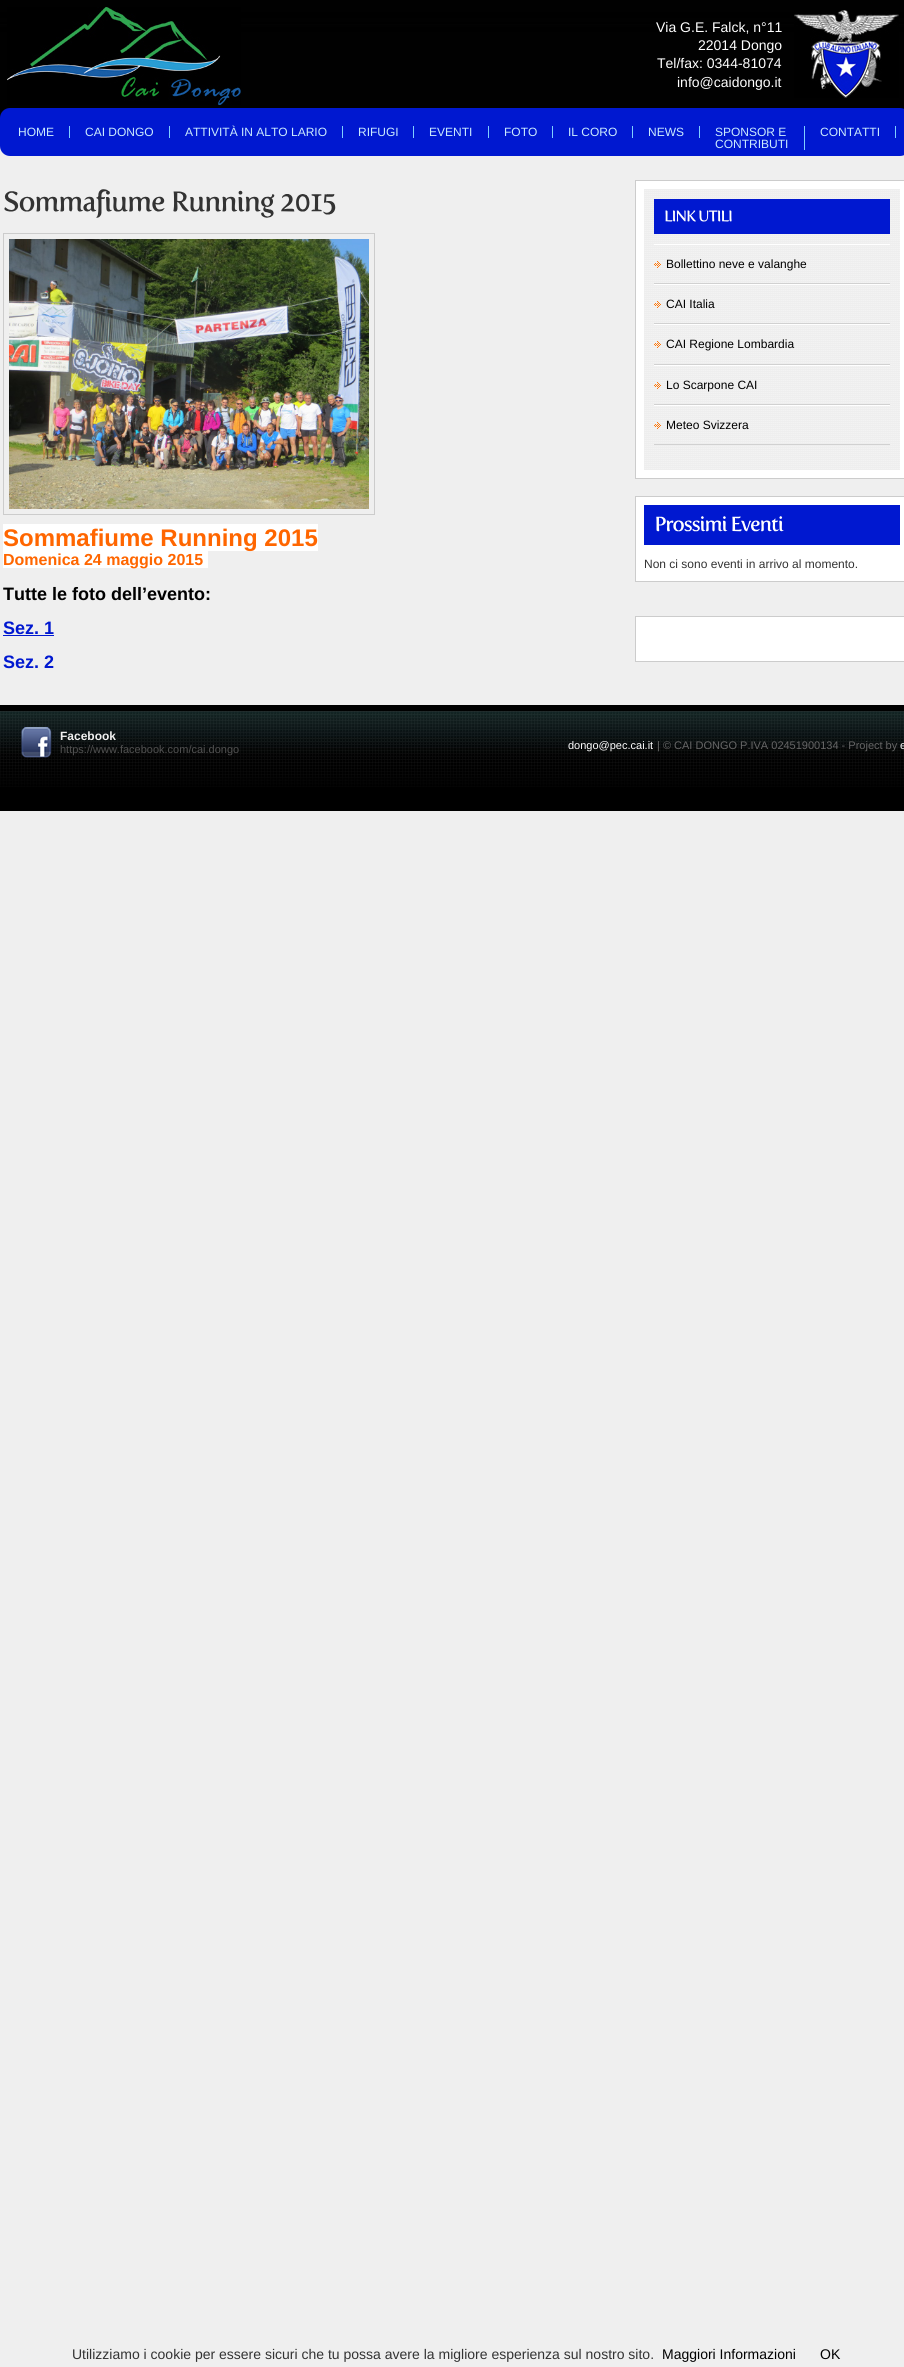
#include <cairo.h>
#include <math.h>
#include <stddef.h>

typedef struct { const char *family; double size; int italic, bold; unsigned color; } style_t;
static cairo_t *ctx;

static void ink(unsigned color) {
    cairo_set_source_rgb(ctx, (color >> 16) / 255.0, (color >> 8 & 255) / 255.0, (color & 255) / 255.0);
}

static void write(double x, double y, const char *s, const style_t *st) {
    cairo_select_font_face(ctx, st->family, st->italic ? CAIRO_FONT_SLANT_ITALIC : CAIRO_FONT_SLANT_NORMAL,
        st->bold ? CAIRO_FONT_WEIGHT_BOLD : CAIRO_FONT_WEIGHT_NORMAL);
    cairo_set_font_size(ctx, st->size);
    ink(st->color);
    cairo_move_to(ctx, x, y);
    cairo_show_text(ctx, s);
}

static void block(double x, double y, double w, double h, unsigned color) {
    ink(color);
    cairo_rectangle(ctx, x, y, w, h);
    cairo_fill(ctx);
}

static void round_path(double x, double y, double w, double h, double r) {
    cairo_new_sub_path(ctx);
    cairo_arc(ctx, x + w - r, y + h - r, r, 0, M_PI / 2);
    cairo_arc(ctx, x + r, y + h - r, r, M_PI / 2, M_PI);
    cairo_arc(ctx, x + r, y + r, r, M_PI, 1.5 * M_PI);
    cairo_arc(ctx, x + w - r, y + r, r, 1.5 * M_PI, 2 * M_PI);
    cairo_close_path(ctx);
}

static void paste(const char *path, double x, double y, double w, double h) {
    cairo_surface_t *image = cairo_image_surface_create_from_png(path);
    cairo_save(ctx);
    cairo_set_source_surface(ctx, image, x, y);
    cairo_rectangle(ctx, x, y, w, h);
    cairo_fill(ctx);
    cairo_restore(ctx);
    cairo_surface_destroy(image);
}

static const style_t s1 = {"Liberation Sans", 14, 0, 0, 0xffffff};
static const style_t s2 = {"Liberation Sans", 12, 0, 0, 0xcbebfe};
static const style_t s3 = {"Liberation Sans", 12, 0, 0, 0x000000};
static const style_t s4 = {"Liberation Sans", 24, 0, 1, 0xff6600};
static const style_t s5 = {"Liberation Sans", 16, 0, 1, 0xff6600};
static const style_t s6 = {"Liberation Sans", 18, 0, 1, 0x000000};
static const style_t s7 = {"Liberation Sans", 18, 0, 1, 0x0018d0};
static const style_t s8 = {"Liberation Sans", 12, 0, 0, 0x333333};
static const style_t s9 = {"Liberation Sans", 12, 0, 1, 0xefefef};
static const style_t s10 = {"Liberation Sans", 11, 0, 0, 0x515151};
static const style_t s11 = {"Liberation Sans", 11, 0, 0, 0xffffff};
static const style_t s12 = {"Liberation Sans", 11, 0, 0, 0x666666};
static const style_t s13 = {"Liberation Sans", 14, 0, 0, 0x333333};
static const style_t s14 = {"Liberation Sans", 14, 0, 0, 0x000000};

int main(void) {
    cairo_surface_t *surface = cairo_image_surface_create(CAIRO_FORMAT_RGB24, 904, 2367);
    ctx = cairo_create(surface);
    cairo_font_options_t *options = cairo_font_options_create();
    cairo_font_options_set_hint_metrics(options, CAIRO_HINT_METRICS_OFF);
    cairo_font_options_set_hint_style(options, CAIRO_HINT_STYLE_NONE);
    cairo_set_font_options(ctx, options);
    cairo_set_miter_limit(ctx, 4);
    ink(0xefefef);
    cairo_paint(ctx);
    paste("pic1.png", 0, 0, 904, 149);
    paste("pic2.png", 7, 7, 234, 98);
    paste("pic3.png", 794, 10, 105, 88);
    write(656, 32, "Via G.E. Falck, n°11", &s1);
    write(698, 50, "22014 Dongo", &s1);
    write(657, 68, "Tel/fax: 0344-81074", &s1);
    write(677, 87, "info@caidongo.it", &s1);
    ink(0x0018d0);
    round_path(0, 108, 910, 48, 10);
    cairo_fill(ctx);
    block(69, 126, 1, 12, 0x80cfff);
    write(18, 136, "HOME", &s2);
    block(169, 126, 1, 12, 0x80cfff);
    write(85, 136, "CAI DONGO", &s2);
    block(342, 126, 1, 12, 0x80cfff);
    write(185, 136, "ATTIVITÀ IN ALTO LARIO", &s2);
    block(413, 126, 1, 12, 0x80cfff);
    write(358, 136, "RIFUGI", &s2);
    block(488, 126, 1, 12, 0x80cfff);
    write(429, 136, "EVENTI", &s2);
    block(552, 126, 1, 12, 0x80cfff);
    write(504, 136, "FOTO", &s2);
    block(632, 126, 1, 12, 0x80cfff);
    write(568, 136, "IL CORO", &s2);
    block(699, 126, 1, 12, 0x80cfff);
    write(648, 136, "NEWS", &s2);
    block(804, 126, 1, 24, 0x80cfff);
    write(715, 136, "SPONSOR E", &s2);
    write(715, 148, "CONTRIBUTI", &s2);
    block(895, 126, 1, 12, 0x80cfff);
    write(820, 136, "CONTATTI", &s2);
    ink(0xffffff);
    cairo_rectangle(ctx, 635.5, 180.5, 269, 298);
    cairo_fill_preserve(ctx);
    ink(0xcccccc);
    cairo_set_line_width(ctx, 1);
    cairo_stroke(ctx);
    paste("pic4.png", 644, 189, 256, 281);
    block(654, 199, 236, 35, 0x0018d0);
    paste("pic5.png", 665, 210, 31, 12);
    paste("pic6.png", 699, 210, 33, 12);
    paste("pic7.png", 654, 261, 7, 7);
    block(654, 244, 236, 1, 0xffffff);
    block(654, 283, 236, 1, 0xd1d1d1);
    write(666, 268, "Bollettino neve e valanghe", &s3);
    paste("pic7.png", 654, 301, 7, 7);
    block(654, 284, 236, 1, 0xffffff);
    block(654, 323, 236, 1, 0xd1d1d1);
    write(666, 308, "CAI Italia", &s3);
    paste("pic7.png", 654, 341, 7, 7);
    block(654, 324, 236, 1, 0xffffff);
    block(654, 364, 236, 1, 0xd1d1d1);
    write(666, 348, "CAI Regione Lombardia", &s3);
    paste("pic8.png", 654, 382, 7, 7);
    block(654, 365, 236, 1, 0xffffff);
    block(654, 404, 236, 1, 0xd1d1d1);
    write(666, 389, "Lo Scarpone CAI", &s3);
    paste("pic8.png", 654, 422, 7, 7);
    block(654, 405, 236, 1, 0xffffff);
    block(654, 444, 236, 1, 0xd1d1d1);
    write(666, 429, "Meteo Svizzera", &s3);
    paste("pic9.png", 4, 189, 161, 29);
    paste("pic10.png", 173, 190, 102, 28);
    paste("pic11.png", 281, 194, 55, 21);
    cairo_rectangle(ctx, 3.5, 233.5, 371, 281);
    ink(0xcccccc);
    cairo_stroke(ctx);
    paste("pic12.png", 9, 239, 360, 270);
    block(3, 524, 315, 27, 0xffffff);
    block(3, 551, 205, 17, 0xffffff);
    write(3, 546, "Sommafiume Running 2015", &s4);
    write(3, 565, "Domenica 24 maggio 2015", &s5);
    write(3, 600, "Tutte le foto dell’evento:", &s6);
    write(3, 634, "Sez. 1", &s7);
    block(3, 635, 51, 1, 0x0018d0);
    write(3, 668, "Sez. 2", &s7);
    ink(0xffffff);
    cairo_rectangle(ctx, 635.5, 496.5, 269, 85);
    cairo_fill_preserve(ctx);
    ink(0xcccccc);
    cairo_stroke(ctx);
    block(644, 505, 256, 40, 0x0018d0);
    paste("pic13.png", 656, 516, 72, 16);
    paste("pic14.png", 732, 516, 52, 16);
    write(644, 568, "Non ci sono eventi in arrivo al momento.", &s8);
    ink(0xffffff);
    cairo_rectangle(ctx, 635.5, 616.5, 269, 45);
    cairo_fill_preserve(ctx);
    ink(0xcccccc);
    cairo_stroke(ctx);
    block(0, 705, 904, 106, 0x000000);
    paste("pic15.png", 0, 711, 904, 76);
    paste("pic16.png", 21, 727, 31, 31);
    write(60, 740, "Facebook", &s9);
    write(60, 753, "https://www.facebook.com/cai.dongo", &s10);
    write(568, 749, "dongo@pec.cai.it", &s11);
    write(657, 749, "| © CAI DONGO P.IVA 02451900134 - Project by", &s12);
    write(900, 749, "e", &s11);
    write(72, 2359, "Utilizziamo i cookie per essere sicuri che tu possa avere la migliore esperienza sul nostro sito.", &s13);
    write(662, 2359, "Maggiori Informazioni", &s14);
    write(820, 2359, "OK", &s14);
    cairo_surface_write_to_png(surface, "screenshot.png");
    cairo_font_options_destroy(options);
    cairo_destroy(ctx);
    cairo_surface_destroy(surface);
    return 0;
}
